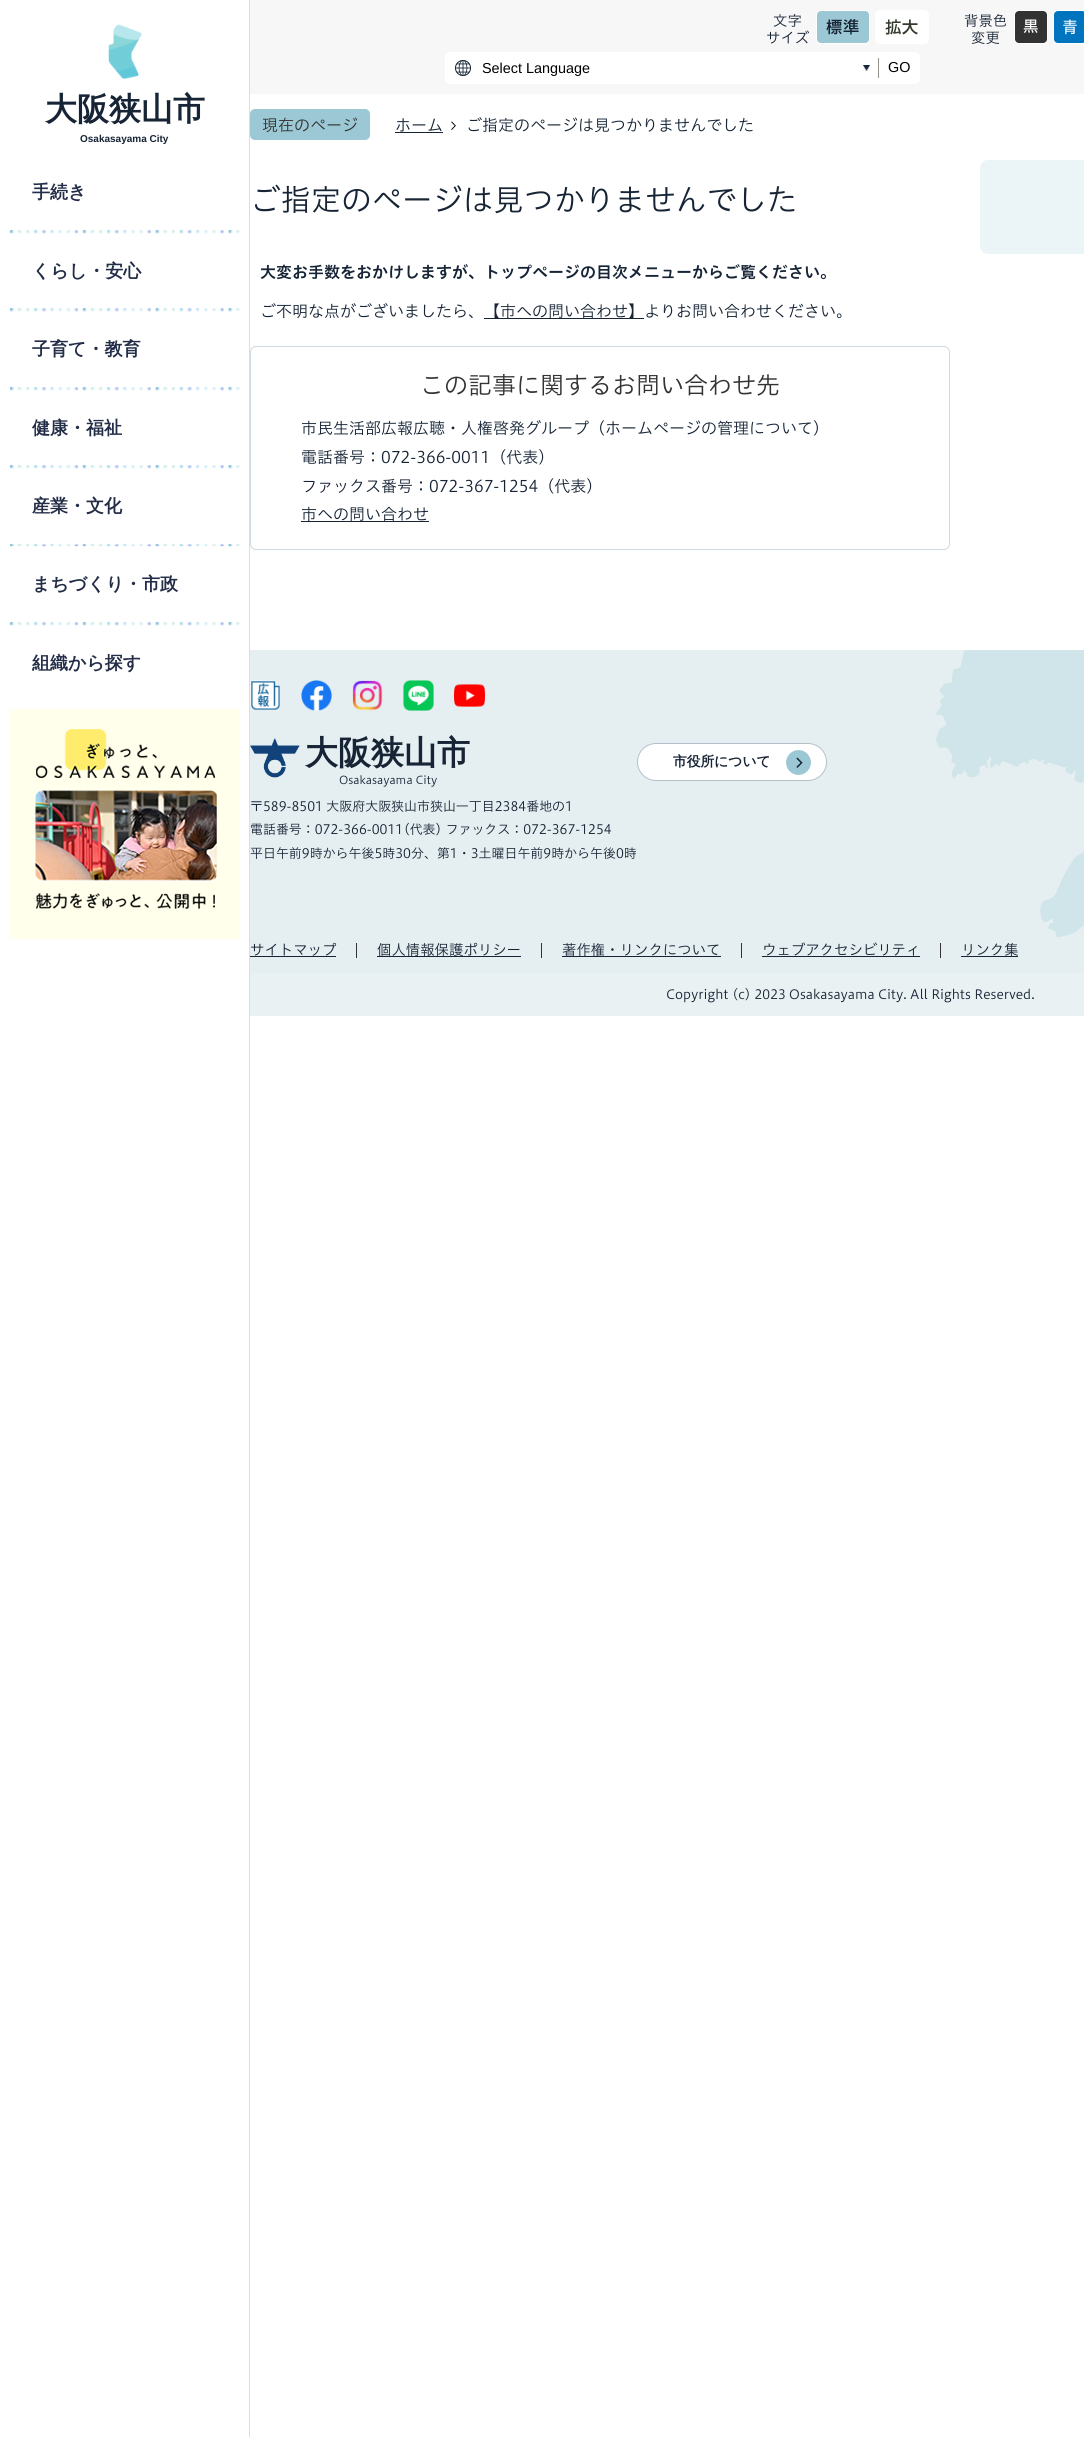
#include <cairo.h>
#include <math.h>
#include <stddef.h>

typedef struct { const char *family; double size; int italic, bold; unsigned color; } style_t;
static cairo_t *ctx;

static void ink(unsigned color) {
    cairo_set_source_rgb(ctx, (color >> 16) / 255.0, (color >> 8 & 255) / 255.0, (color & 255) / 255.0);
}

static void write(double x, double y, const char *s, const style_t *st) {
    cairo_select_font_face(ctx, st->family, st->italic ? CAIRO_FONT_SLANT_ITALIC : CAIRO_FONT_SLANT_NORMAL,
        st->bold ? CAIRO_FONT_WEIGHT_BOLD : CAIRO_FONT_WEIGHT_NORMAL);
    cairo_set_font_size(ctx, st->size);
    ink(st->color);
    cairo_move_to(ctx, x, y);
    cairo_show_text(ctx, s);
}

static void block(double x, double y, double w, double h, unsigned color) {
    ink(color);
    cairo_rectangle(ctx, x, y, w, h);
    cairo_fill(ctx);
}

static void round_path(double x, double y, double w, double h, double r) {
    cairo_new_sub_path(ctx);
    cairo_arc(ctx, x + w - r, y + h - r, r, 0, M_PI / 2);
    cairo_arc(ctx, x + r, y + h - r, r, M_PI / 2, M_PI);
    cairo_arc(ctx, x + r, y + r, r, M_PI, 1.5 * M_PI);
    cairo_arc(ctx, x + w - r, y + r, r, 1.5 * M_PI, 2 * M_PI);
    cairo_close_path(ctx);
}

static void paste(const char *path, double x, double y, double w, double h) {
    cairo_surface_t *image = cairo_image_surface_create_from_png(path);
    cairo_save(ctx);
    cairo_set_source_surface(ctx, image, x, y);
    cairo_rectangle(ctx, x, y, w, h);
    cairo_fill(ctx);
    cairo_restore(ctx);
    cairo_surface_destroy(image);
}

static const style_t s1 = {"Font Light", 14.4, 0, 0, 0x162435};
static const style_t s2 = {"Liberation Sans", 14.4, 0, 0, 0x000000};
static const style_t s3 = {"WenQuanYi Zen Hei", 32, 0, 1, 0x162435};
static const style_t s4 = {"Liberation Sans", 10, 0, 1, 0x162435};
static const style_t s5 = {"WenQuanYi Zen Hei", 18, 0, 1, 0x232d47};
static const style_t s6 = {"Font Light", 30.4, 0, 0, 0x162435};
static const style_t s7 = {"Font SemiBold", 16, 0, 0, 0x162435};
static const style_t s8 = {"Font Light", 16, 0, 0, 0x162435};
static const style_t s9 = {"Font Light", 24, 0, 0, 0x333333};
static const style_t s10 = {"Font Light", 16, 0, 0, 0x333333};
static const style_t s11 = {"WenQuanYi Zen Hei", 33, 0, 1, 0x162435};
static const style_t s12 = {"Font Light", 11, 0, 0, 0x162435};
static const style_t s13 = {"Font Light", 12.95, 0, 0, 0x162435};
static const style_t s14 = {"WenQuanYi Zen Hei", 13.75, 0, 1, 0x162435};
static const style_t s15 = {"Font Light", 12.8, 0, 0, 0x162435};

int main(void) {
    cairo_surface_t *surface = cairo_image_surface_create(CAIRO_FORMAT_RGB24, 1084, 2437);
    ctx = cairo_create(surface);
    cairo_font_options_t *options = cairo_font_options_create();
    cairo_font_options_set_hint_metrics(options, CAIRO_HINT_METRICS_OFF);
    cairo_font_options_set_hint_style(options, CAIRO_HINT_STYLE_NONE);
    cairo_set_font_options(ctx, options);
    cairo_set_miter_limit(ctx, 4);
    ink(0xffffff);
    cairo_paint(ctx);
    block(250, 0, 834, 94, 0xf8f7f7);
    write(773, 26, "文字", &s1);
    write(766, 43, "サイズ", &s1);
    paste("pic1.png", 816, 10, 54, 34);
    paste("pic2.png", 875, 10, 54, 34);
    write(964, 26, "背景色", &s1);
    write(971, 43, "変更", &s1);
    paste("pic3.png", 1014, 10, 34, 34);
    paste("pic4.png", 1053, 10, 31, 34);
    ink(0xffffff);
    cairo_new_path(ctx);
    cairo_move_to(ctx, 450, 52);
    cairo_line_to(ctx, 479, 52);
    cairo_line_to(ctx, 479, 84);
    cairo_line_to(ctx, 450, 84);
    cairo_curve_to(ctx, 447, 84, 445, 82, 445, 79);
    cairo_line_to(ctx, 445, 57);
    cairo_curve_to(ctx, 445, 54, 447, 52, 450, 52);
    cairo_close_path(ctx);
    cairo_fill(ctx);
    paste("pic5.png", 455, 60, 16, 16);
    block(479, 52, 399, 32, 0xffffff);
    paste("pic6.png", 863, 65, 7, 6);
    write(482, 73, "Select Language", &s2);
    ink(0xffffff);
    cairo_new_path(ctx);
    cairo_move_to(ctx, 878, 52);
    cairo_line_to(ctx, 915, 52);
    cairo_curve_to(ctx, 918, 52, 920, 54, 920, 57);
    cairo_line_to(ctx, 920, 79);
    cairo_curve_to(ctx, 920, 82, 918, 84, 915, 84);
    cairo_line_to(ctx, 878, 84);
    cairo_close_path(ctx);
    cairo_fill(ctx);
    block(878, 58, 1, 20, 0x9b948c);
    write(888, 72, "GO", &s2);
    block(249, 0, 1, 2437, 0xdddddd);
    paste("pic7.png", 108, 24, 34, 56);
    write(45, 120, "大阪狭山市", &s3);
    write(80, 142, "Osakasayama City", &s4);
    paste("pic8.png", 10, 230, 230, 4);
    write(32, 198, "手続き", &s5);
    paste("pic8.png", 10, 308, 230, 4);
    write(32, 277, "くらし・安心", &s5);
    paste("pic8.png", 10, 387, 230, 4);
    write(32, 355, "子育て・教育", &s5);
    paste("pic8.png", 10, 465, 230, 4);
    write(32, 434, "健康・福祉", &s5);
    paste("pic9.png", 10, 544, 230, 3);
    write(32, 512, "産業・文化", &s5);
    paste("pic8.png", 10, 622, 230, 4);
    write(32, 590, "まちづくり・市政", &s5);
    write(32, 669, "組織から探す", &s5);
    paste("pic10.png", 10, 709, 230, 230);
    write(250, 211, "ご指定のページは見つかりませんでした", &s6);
    write(260, 278, "大変お手数をおかけしますが、トップページの目次メニューからご覧ください。", &s7);
    write(260, 317, "ご不明な点がございましたら、", &s8);
    block(484, 318, 160, 1, 0x162435);
    write(484, 317, "【市への問い合わせ】よりお問い合わせください。", &s8);
    round_path(250.5, 346.5, 699, 203, 5.5);
    ink(0xccd9e1);
    cairo_set_line_width(ctx, 1);
    cairo_stroke(ctx);
    write(420, 394, "この記事に関するお問い合わせ先", &s9);
    write(301, 434, "市民生活部広報広聴・人権啓発グループ（ホームページの管理について）", &s8);
    write(301, 463, "電話番号：072-366-0011（代表）", &s8);
    write(301, 492, "ファックス番号：072-367-1254（代表）", &s8);
    block(301, 521, 128, 1, 0x162435);
    write(301, 520, "市への問い合わせ", &s8);
    ink(0xebf4f6);
    round_path(980, 160, 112, 94, 8);
    cairo_fill(ctx);
    ink(0x9bc8d4);
    round_path(250, 109, 120, 31, 5);
    cairo_fill(ctx);
    write(262, 131, "現在のページ", &s10);
    write(395, 131, "ホーム", &s8);
    block(395, 132, 48, 1, 0x162435);
    paste("pic11.png", 451, 121, 5, 9);
    write(466, 131, "ご指定のページは見つかりませんでした", &s8);
    block(250, 650, 834, 323, 0xe5eef0);
    paste("pic12.png", 250, 680, 31, 31);
    paste("pic13.png", 301, 680, 31, 31);
    paste("pic14.png", 352, 680, 31, 31);
    paste("pic15.png", 403, 680, 31, 31);
    paste("pic16.png", 454, 684, 31, 23);
    paste("pic17.png", 250, 738, 50, 40);
    write(305, 764, "大阪狭山市", &s11);
    write(339, 784, "Osakasayama City", &s12);
    write(250, 811, "〒589-8501 大阪府大阪狭山市狭山一丁目2384番地の1", &s13);
    write(250, 834, "電話番号：072-366-0011(代表) ファックス：072-367-1254", &s13);
    write(250, 858, "平日午前9時から午後5時30分、第1・3土曜日午前9時から午後0時", &s13);
    ink(0xffffff);
    round_path(637, 743, 190, 38, 19);
    cairo_fill(ctx);
    paste("pic18.png", 786, 750, 25, 25);
    round_path(637.5, 743.5, 189, 37, 18.5);
    ink(0xb1bfc8);
    cairo_stroke(ctx);
    write(673, 766, "市役所について", &s14);
    paste("pic19.png", 936, 650, 148, 287);
    block(356, 943, 1, 15, 0x333333);
    write(250, 955, "サイトマップ", &s1);
    block(250, 956, 86, 1, 0x162435);
    block(541, 943, 1, 15, 0x333333);
    write(377, 955, "個人情報保護ポリシー", &s1);
    block(377, 956, 144, 1, 0x162435);
    block(741, 943, 1, 15, 0x333333);
    write(562, 955, "著作権・リンクについて", &s1);
    block(562, 956, 159, 1, 0x162435);
    block(940, 943, 1, 15, 0x333333);
    write(762, 955, "ウェブアクセシビリティ", &s1);
    block(762, 956, 158, 1, 0x162435);
    write(961, 955, "リンク集", &s1);
    block(961, 956, 57, 1, 0x162435);
    block(250, 973, 834, 43, 0xeaf1f3);
    write(666, 999, "Copyright (c) 2023 Osakasayama City. All Rights Reserved.", &s15);
    cairo_surface_write_to_png(surface, "screenshot.png");
    cairo_font_options_destroy(options);
    cairo_destroy(ctx);
    cairo_surface_destroy(surface);
    return 0;
}
